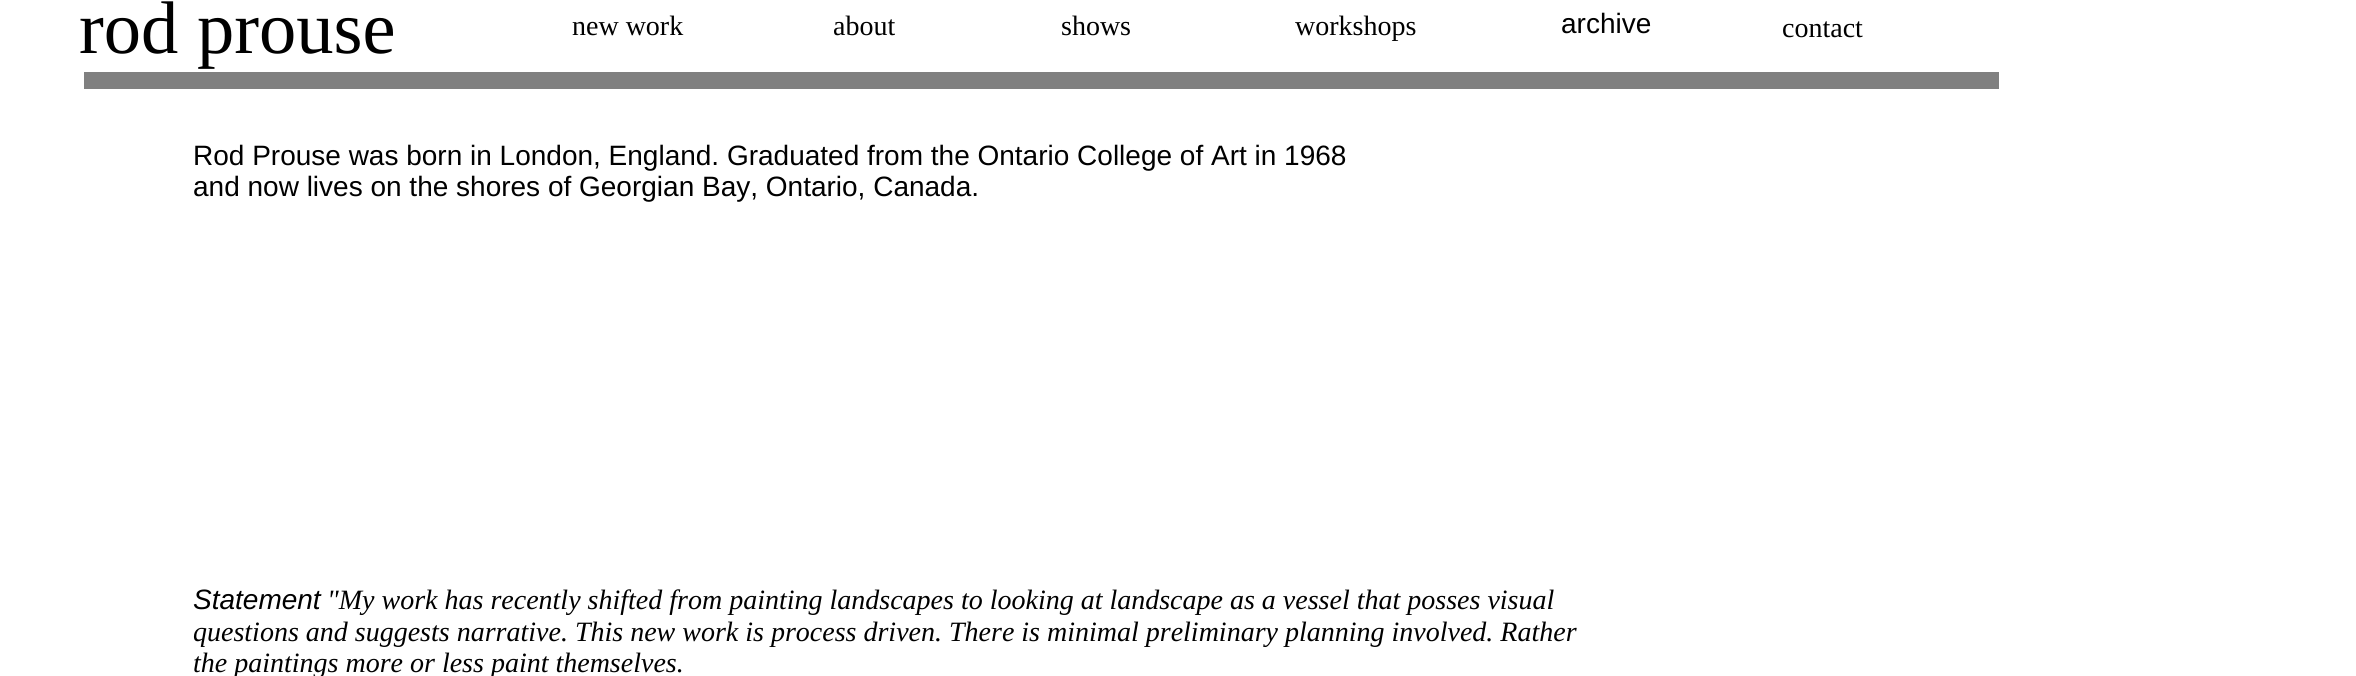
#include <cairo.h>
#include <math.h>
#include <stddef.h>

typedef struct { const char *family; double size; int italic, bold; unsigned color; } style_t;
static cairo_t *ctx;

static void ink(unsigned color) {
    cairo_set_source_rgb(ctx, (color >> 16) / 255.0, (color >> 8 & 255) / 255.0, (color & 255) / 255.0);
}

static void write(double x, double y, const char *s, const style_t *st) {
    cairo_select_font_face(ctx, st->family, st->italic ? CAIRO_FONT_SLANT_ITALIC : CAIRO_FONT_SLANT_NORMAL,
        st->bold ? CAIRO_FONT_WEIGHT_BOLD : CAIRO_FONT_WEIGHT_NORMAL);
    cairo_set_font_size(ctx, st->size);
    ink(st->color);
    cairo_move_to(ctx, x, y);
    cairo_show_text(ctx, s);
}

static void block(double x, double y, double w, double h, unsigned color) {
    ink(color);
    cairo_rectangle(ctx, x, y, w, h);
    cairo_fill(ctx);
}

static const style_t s1 = {"Liberation Serif", 74.5, 0, 0, 0x000000};
static const style_t s2 = {"Liberation Serif", 28, 0, 0, 0x000000};
static const style_t s3 = {"Liberation Sans", 28, 0, 0, 0x000000};
static const style_t s4 = {"Liberation Sans", 28, 1, 0, 0x000000};
static const style_t s5 = {"Liberation Serif", 28, 1, 0, 0x000000};

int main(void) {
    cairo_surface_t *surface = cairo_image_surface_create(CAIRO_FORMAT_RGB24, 2356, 676);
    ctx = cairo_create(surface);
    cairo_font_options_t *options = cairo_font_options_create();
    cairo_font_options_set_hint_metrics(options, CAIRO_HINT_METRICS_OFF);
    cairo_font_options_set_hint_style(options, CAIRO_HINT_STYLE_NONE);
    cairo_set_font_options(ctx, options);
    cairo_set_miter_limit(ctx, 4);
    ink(0xffffff);
    cairo_paint(ctx);
    write(79, 53, "rod prouse", &s1);
    write(572, 35, "new work", &s2);
    write(833, 35, "about", &s2);
    write(1061, 35, "shows", &s2);
    write(1295, 35, "workshops", &s2);
    write(1561, 33, "archive", &s3);
    write(1782, 37, "contact", &s2);
    block(84, 72, 1915, 17, 0x808080);
    write(193, 165, "Rod Prouse was born in London, England. Graduated from the Ontario College of Art in 1968", &s3);
    write(193, 196, "and now lives on the shores of Georgian Bay, Ontario, Canada.", &s3);
    write(193, 609, "Statement", &s4);
    write(327, 609, "\"My work has recently shifted from painting landscapes to looking at landscape as a vessel that posses visual", &s5);
    write(193, 641, "questions and suggests narrative. This new work is process driven. There is minimal preliminary planning involved. Rather", &s5);
    write(193, 672, "the paintings more or less paint themselves.", &s5);
    cairo_surface_write_to_png(surface, "screenshot.png");
    cairo_font_options_destroy(options);
    cairo_destroy(ctx);
    cairo_surface_destroy(surface);
    return 0;
}
